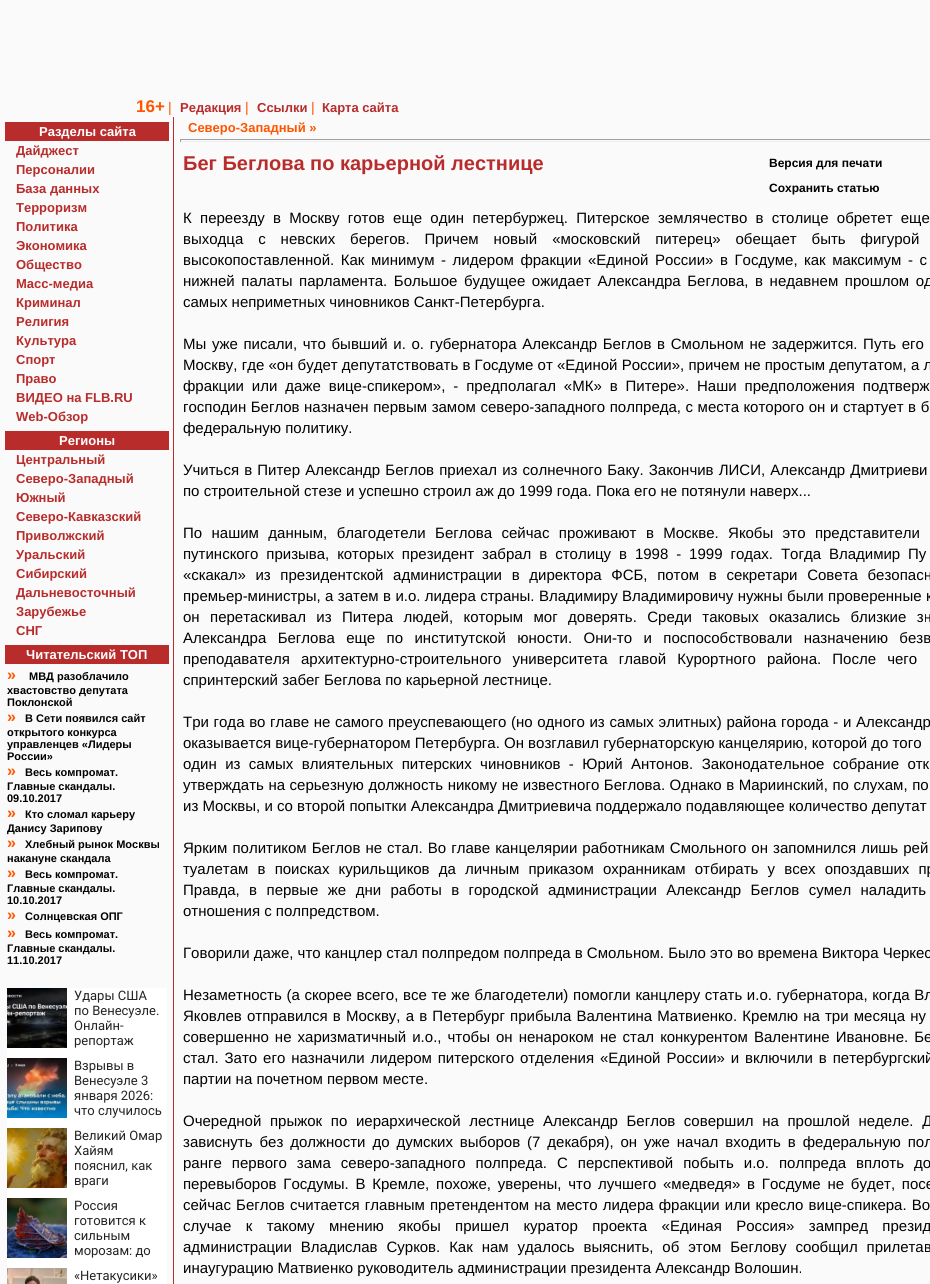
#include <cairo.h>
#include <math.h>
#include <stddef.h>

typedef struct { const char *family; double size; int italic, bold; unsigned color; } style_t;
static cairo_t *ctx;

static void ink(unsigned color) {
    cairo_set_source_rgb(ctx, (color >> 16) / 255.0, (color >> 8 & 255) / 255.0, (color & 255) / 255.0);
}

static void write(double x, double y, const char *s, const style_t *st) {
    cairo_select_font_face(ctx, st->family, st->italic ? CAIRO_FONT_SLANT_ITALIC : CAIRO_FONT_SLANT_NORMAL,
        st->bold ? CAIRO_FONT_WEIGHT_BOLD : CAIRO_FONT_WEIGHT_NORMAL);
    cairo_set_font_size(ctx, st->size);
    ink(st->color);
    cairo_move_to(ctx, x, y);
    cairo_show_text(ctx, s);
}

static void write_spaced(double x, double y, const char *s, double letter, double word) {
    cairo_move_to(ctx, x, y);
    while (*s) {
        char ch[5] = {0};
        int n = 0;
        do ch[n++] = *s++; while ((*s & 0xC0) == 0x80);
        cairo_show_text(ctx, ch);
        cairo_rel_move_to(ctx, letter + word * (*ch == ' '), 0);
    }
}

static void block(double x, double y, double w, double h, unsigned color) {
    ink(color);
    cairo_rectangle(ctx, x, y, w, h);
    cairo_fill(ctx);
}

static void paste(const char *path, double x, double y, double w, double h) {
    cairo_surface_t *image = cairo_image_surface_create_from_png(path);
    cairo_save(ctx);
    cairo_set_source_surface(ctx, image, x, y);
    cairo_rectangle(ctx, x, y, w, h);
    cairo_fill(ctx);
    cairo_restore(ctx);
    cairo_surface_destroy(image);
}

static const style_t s1 = {"Liberation Sans", 17, 0, 1, 0xff5500};
static const style_t s2 = {"Liberation Sans", 14, 0, 0, 0xff5500};
static const style_t s3 = {"Liberation Sans", 13, 0, 1, 0xb82c2c};
static const style_t s4 = {"Liberation Sans", 13, 0, 1, 0xffffff};
static const style_t s5 = {"Liberation Sans", 16, 0, 1, 0xff5500};
static const style_t s6 = {"Liberation Sans", 11, 0, 1, 0x000000};
static const style_t s7 = {"Roboto", 13, 0, 0, 0x232323};
static const style_t s8 = {"Liberation Sans", 13, 0, 1, 0xff5500};
static const style_t s9 = {"Liberation Sans", 20, 0, 1, 0xb82c2c};
static const style_t s10 = {"Liberation Sans", 12, 0, 1, 0x000000};
static const style_t s11 = {"Liberation Sans", 15, 0, 0, 0x000000};

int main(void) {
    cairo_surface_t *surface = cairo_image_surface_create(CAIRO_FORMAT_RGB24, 930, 1284);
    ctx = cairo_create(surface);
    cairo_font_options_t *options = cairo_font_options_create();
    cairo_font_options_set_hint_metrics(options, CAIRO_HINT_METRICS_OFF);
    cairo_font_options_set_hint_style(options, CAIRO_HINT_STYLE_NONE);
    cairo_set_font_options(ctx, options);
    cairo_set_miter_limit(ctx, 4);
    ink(0xfafafa);
    cairo_paint(ctx);
    write(136, 112, "16+", &s1);
    write(168, 112, "|", &s2);
    write(180, 112, "Редакция", &s3);
    write(245, 112, "|", &s2);
    write(257, 112, "Ссылки", &s3);
    write(311, 112, "|", &s2);
    write(322, 112, "Карта сайта", &s3);
    block(5, 122, 164, 19, 0xb82c2c);
    write(39, 136, "Разделы сайта", &s4);
    write(16, 155, "Дайджест", &s3);
    write(16, 174, "Персоналии", &s3);
    write(16, 193, "База данных", &s3);
    write(16, 212, "Терроризм", &s3);
    write(16, 231, "Политика", &s3);
    write(16, 250, "Экономика", &s3);
    write(16, 269, "Общество", &s3);
    write(16, 288, "Macc-медиа", &s3);
    write(16, 307, "Криминал", &s3);
    write(16, 326, "Религия", &s3);
    write(16, 345, "Культура", &s3);
    write(16, 364, "Спорт", &s3);
    write(16, 383, "Право", &s3);
    write(16, 402, "ВИДЕО на FLB.RU", &s3);
    write(16, 421, "Web-Обзор", &s3);
    block(5, 431, 164, 19, 0xb82c2c);
    write(59, 445, "Регионы", &s4);
    write(16, 464, "Центральный", &s3);
    write(16, 483, "Северо-Западный", &s3);
    write(16, 502, "Южный", &s3);
    write(16, 521, "Северо-Кавказский", &s3);
    write(16, 540, "Приволжский", &s3);
    write(16, 559, "Уральский", &s3);
    write(16, 578, "Сибирский", &s3);
    write(16, 597, "Дальневосточный", &s3);
    write(16, 616, "Зарубежье", &s3);
    write(16, 635, "СНГ", &s3);
    block(5, 645, 164, 19, 0xb82c2c);
    write(26, 659, "Читательский TOП", &s4);
    write(7, 680, "»", &s5);
    write(29, 680, "МВД разоблачило", &s6);
    write(7, 694, "хвастовство депутата", &s6);
    write(7, 706, "Поклонской", &s6);
    write(7, 722, "»", &s5);
    write(25, 722, "В Сети появился сайт", &s6);
    write(7, 736, "открытого конкурса", &s6);
    write(7, 748, "управленцев «Лидеры", &s6);
    write(7, 760, "России»", &s6);
    write(7, 776, "»", &s5);
    write(25, 776, "Весь компромат.", &s6);
    write(7, 790, "Главные скандалы.", &s6);
    write(7, 802, "09.10.2017", &s6);
    write(7, 818, "»", &s5);
    write(25, 818, "Кто сломал карьеру", &s6);
    write(7, 832, "Данису Зарипову", &s6);
    write(7, 848, "»", &s5);
    write(25, 848, "Хлебный рынок Москвы", &s6);
    write(7, 862, "накануне скандала", &s6);
    write(7, 878, "»", &s5);
    write(25, 878, "Весь компромат.", &s6);
    write(7, 892, "Главные скандалы.", &s6);
    write(7, 904, "10.10.2017", &s6);
    write(7, 920, "»", &s5);
    write(25, 920, "Солнцевская ОПГ", &s6);
    write(7, 938, "»", &s5);
    write(25, 938, "Весь компромат.", &s6);
    write(7, 952, "Главные скандалы.", &s6);
    write(7, 964, "11.10.2017", &s6);
    block(7, 988, 160, 296, 0xffffff);
    paste("pic1.png", 7, 988, 60, 60);
    write(74, 1000, "Удары США", &s7);
    write(74, 1015, "по Венесуэле.", &s7);
    write(74, 1030, "Онлайн-", &s7);
    write(74, 1045, "репортаж", &s7);
    paste("pic2.png", 7, 1058, 60, 60);
    write(74, 1070, "Взрывы в", &s7);
    write(74, 1085, "Венесуэле 3", &s7);
    write(74, 1100, "января 2026:", &s7);
    write(74, 1115, "что случилось", &s7);
    paste("pic3.png", 7, 1128, 60, 60);
    write(74, 1140, "Великий Омар", &s7);
    write(74, 1155, "Хайям", &s7);
    write(74, 1170, "пояснил, как", &s7);
    write(74, 1185, "враги", &s7);
    paste("pic4.png", 7, 1198, 60, 60);
    write(74, 1210, "Россия", &s7);
    write(74, 1225, "готовится к", &s7);
    write(74, 1240, "сильным", &s7);
    write(74, 1255, "морозам: до", &s7);
    paste("pic5.png", 7, 1268, 60, 16);
    write(74, 1280, "«Нетакусики»", &s7);
    block(173, 117, 1, 1167, 0xb82c2c);
    write(188, 132, "Северо-Западный »", &s8);
    block(180, 139, 750, 1, 0x9f9f9f);
    block(180, 141, 750, 1, 0xeeeeee);
    block(180, 139, 1, 3, 0x9f9f9f);
    write(183, 170, "Бег Беглова по карьерной лестнице", &s9);
    write(769, 167, "Версия для печати", &s10);
    write(769, 192, "Сохранить статью", &s10);
    cairo_select_font_face(ctx, "Liberation Sans", CAIRO_FONT_SLANT_NORMAL, CAIRO_FONT_WEIGHT_NORMAL);
    cairo_set_font_size(ctx, 15);
    write_spaced(183, 223, "К переезду в Москву готов еще один петербуржец. Питерское землячество в столице обретет еще", 0, 4.1);
    write_spaced(183, 244, "выходца с невских берегов. Причем новый «московский питерец» обещает быть фигурой", 0, 10.75);
    write_spaced(183, 265, "высокопоставленной. Как минимум - лидером фракции «Единой России» в Госдуме, как максимум - с", 0, 2.4);
    write_spaced(183, 286, "нижней палаты парламента. Большое будущее ожидает Александра Беглова, в недавнем прошлом од", 0, 2.4);
    write(183, 307, "самых неприметных чиновников Санкт-Петербурга.", &s11);
    write_spaced(183, 349, "Мы уже писали, что бывший и. о. губернатора Александр Беглов в Смольном не задержится. Путь его", 0, 1.5);
    write(183, 370, "Москву, где «он будет депутатствовать в Госдуме от «Единой России», причем не простым депутатом, а л", &s11);
    write_spaced(183, 391, "фракции или даже вице-спикером», - предполагал «МК» в Питере». Наши предположения подтверж", 0, 3.75);
    write_spaced(183, 412, "господин Беглов назначен первым замом северо-западного полпреда, с места которого он и стартует в б", 0, 0.4);
    write(183, 433, "федеральную политику.", &s11);
    write_spaced(183, 475, "Учиться в Питер Александр Беглов приехал из солнечного Баку. Закончив ЛИСИ, Александр Дмитриеви", 0, 1);
    write(183, 496, "по строительной стезе и успешно строил аж до 1999 года. Пока его не потянули наверх...", &s11);
    write_spaced(183, 538, "По нашим данным, благодетели Беглова сейчас проживают в Москве. Якобы это представители", 0, 5.25);
    write_spaced(183, 559, "путинского призыва, которых президент забрал в столицу в 1998 - 1999 годах. Тогда Владимир Пу", 0, 3.75);
    write_spaced(183, 580, "«скакал» из президентской администрации в директора ФСБ, потом в секретари Совета безопасн", 0, 5.5);
    write_spaced(183, 601, "премьер-министры, а затем в и.о. лидера страны. Владимиру Владимировичу нужны были проверенные к", 0, 0.25);
    write_spaced(183, 622, "он перетаскивал из Питера людей, которым мог доверять. Среди таковых оказались близкие зн", 0, 6.25);
    write_spaced(183, 643, "Александра Беглова еще по институтской юности. Они-то и поспособствовали назначению безв", 0, 7.25);
    write_spaced(183, 664, "преподавателя архитектурно-строительного университета главой Курортного района. После чего", 0, 7);
    write(183, 685, "спринтерский забег Беглова по карьерной лестнице.", &s11);
    write_spaced(183, 727, "Три года во главе не самого преуспевающего (но одного из самых элитных) района города - и Александр", 0, 0.5);
    write(183, 748, "оказывается вице-губернатором Петербурга. Он возглавил губернаторскую канцелярию, которой до того", &s11);
    write_spaced(183, 769, "один из самых влиятельных питерских чиновников - Юрий Антонов. Законодательное собрание отк", 0, 4.25);
    write_spaced(183, 790, "утверждать на серьезную должность никому не известного Беглова. Однако в Мариинский, по слухам, по", 0, 0.4);
    write(183, 811, "из Москвы, и со второй попытки Александра Дмитриевича поддержало подавляющее количество депутат", &s11);
    write_spaced(183, 853, "Ярким политиком Беглов не стал. Во главе канцелярии работникам Смольного он запомнился лишь рей", 0, 0.9);
    write_spaced(183, 874, "туалетам в поисках курильщиков да личным приказом охранникам отбирать у всех опоздавших пр", 0, 5);
    write_spaced(183, 895, "Правда, в первые же дни работы в городской администрации Александр Беглов сумел наладить", 0, 5.25);
    write(183, 916, "отношения с полпредством.", &s11);
    write(183, 958, "Говорили даже, что канцлер стал полпредом полпреда в Смольном. Было это во времена Виктора Черкес", &s11);
    write_spaced(183, 1000, "Незаметность (а скорее всего, все те же благодетели) помогли канцлеру стать и.о. губернатора, когда Вл", 0, 0.5);
    write_spaced(183, 1021, "Яковлев отправился в Москву, а в Петербург прибыла Валентина Матвиенко. Кремлю на три месяца ну", 0, 1);
    write_spaced(183, 1042, "совершенно не харизматичный и.о., чтобы он ненароком не стал конкурентом Валентине Ивановне. Бе", 0, 1.9);
    write_spaced(183, 1063, "стал. Зато его назначили лидером питерского отделения «Единой России» и включили в петербургский", 0, 1.75);
    write(183, 1084, "партии на почетном первом месте.", &s11);
    write_spaced(183, 1126, "Очередной прыжок по иерархической лестнице Александр Беглов совершил на прошлой неделе. Д", 0, 4.5);
    write_spaced(183, 1147, "зависнуть без должности до думских выборов (7 декабря), он уже начал входить в федеральную пол", 0, 2.75);
    write_spaced(183, 1168, "ранге первого зама северо-западного полпреда. С перспективой побыть и.о. полпреда вплоть до", 0, 5.9);
    write_spaced(183, 1189, "перевыборов Госдумы. В Кремле, похоже, уверены, что лучшего «медведя» в Госдуме не будет, посе", 0, 2.6);
    write_spaced(183, 1210, "сейчас Беглов считается главным претендентом на место лидера фракции или кресло вице-спикера. Во", 0, 1);
    write_spaced(183, 1231, "случае к такому мнению якобы пришел куратор проекта «Единая Россия» зампред презид", 0, 10.25);
    write_spaced(183, 1252, "администрации Владислав Сурков. Как нам удалось выяснить, об этом Беглову сообщил прилетав", 0, 4.75);
    write(183, 1273, "инаугурацию Матвиенко руководитель администрации президента Александр Волошин.", &s11);
    cairo_surface_write_to_png(surface, "screenshot.png");
    cairo_font_options_destroy(options);
    cairo_destroy(ctx);
    cairo_surface_destroy(surface);
    return 0;
}
